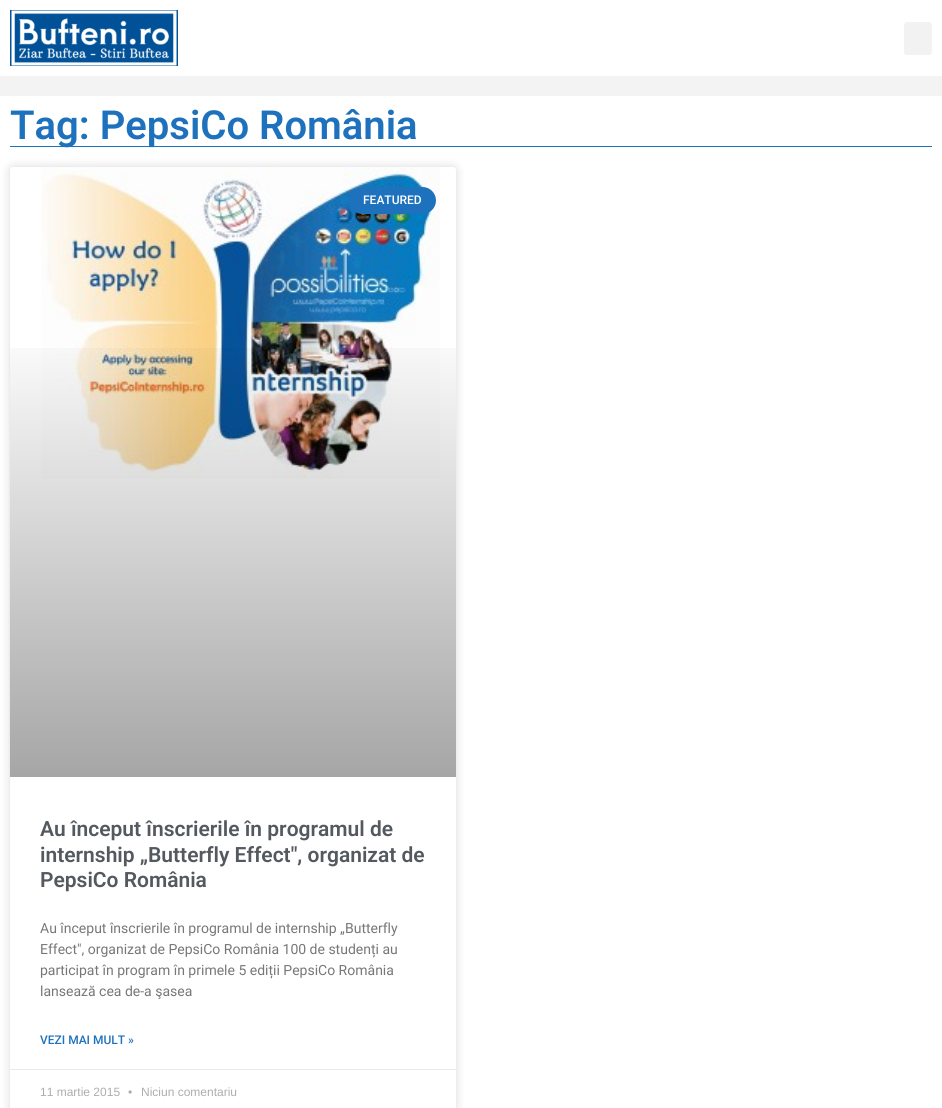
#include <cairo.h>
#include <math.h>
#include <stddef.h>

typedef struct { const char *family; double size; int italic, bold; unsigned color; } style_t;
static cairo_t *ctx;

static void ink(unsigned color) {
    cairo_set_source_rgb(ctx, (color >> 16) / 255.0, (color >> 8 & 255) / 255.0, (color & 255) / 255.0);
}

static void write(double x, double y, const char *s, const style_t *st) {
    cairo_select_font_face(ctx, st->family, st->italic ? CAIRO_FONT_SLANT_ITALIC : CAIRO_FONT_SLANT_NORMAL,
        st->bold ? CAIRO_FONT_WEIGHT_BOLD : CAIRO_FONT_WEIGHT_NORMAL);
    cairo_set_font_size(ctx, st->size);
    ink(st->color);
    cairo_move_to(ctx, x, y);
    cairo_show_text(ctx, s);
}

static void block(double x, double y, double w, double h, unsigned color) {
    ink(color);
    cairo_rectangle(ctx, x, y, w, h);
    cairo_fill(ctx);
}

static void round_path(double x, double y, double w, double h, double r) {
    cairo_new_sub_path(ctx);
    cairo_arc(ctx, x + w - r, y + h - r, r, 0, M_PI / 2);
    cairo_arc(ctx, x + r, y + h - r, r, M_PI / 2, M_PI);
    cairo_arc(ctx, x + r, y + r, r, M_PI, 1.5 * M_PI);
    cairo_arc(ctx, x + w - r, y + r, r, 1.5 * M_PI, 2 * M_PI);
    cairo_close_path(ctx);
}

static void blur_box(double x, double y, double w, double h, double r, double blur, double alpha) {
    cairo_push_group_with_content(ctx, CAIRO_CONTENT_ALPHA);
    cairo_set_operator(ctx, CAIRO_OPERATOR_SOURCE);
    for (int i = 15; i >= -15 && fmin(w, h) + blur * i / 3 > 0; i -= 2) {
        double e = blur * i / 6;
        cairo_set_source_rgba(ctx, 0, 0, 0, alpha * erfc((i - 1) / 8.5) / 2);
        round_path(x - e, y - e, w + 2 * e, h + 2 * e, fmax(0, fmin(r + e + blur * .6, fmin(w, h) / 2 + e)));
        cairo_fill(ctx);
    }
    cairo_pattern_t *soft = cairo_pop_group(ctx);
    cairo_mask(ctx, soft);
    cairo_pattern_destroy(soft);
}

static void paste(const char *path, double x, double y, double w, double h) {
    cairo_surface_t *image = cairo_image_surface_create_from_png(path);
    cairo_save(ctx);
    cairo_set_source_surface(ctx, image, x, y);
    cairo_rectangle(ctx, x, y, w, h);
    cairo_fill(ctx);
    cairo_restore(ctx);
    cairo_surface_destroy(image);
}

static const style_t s1 = {"Roboto SemiBold", 40, 0, 0, 0x1e72bd};
static const style_t s2 = {"Roboto Medium", 12, 0, 0, 0xffffff};
static const style_t s3 = {"Roboto SemiBold", 21, 0, 0, 0x54595f};
static const style_t s4 = {"Roboto", 14, 0, 0, 0x777777};
static const style_t s5 = {"Roboto Medium", 12, 0, 0, 0x1e72bd};
static const style_t s6 = {"Liberation Sans", 12, 0, 0, 0xadadad};

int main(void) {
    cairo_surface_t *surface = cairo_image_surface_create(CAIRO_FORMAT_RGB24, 942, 1108);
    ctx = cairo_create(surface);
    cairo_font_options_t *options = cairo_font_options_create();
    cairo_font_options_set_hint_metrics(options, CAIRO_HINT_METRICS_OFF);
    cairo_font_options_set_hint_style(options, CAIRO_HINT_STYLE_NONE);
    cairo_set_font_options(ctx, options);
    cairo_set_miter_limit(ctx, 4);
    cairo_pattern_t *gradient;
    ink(0xf3f3f3);
    cairo_paint(ctx);
    block(0, 0, 942, 76, 0xffffff);
    paste("pic1.png", 10, 10, 168, 56);
    ink(0xf2f2f2);
    round_path(904, 22, 28, 33, 3);
    cairo_fill(ctx);
    block(0, 96, 942, 1012, 0xffffff);
    block(10, 146, 922, 1, 0x1e72bd);
    write(10, 139, "Tag: PepsiCo România", &s1);
    ink(0x000000);
    blur_box(10, 167, 446, 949, 3, 5, 0.15);
    ink(0xffffff);
    round_path(10, 167, 446, 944, 3);
    cairo_fill(ctx);
    paste("pic2.png", 41, 167, 399, 312);
    gradient = cairo_pattern_create_linear(233, 777, 233, 167);
    cairo_pattern_add_color_stop_rgba(gradient, 0, 0, 0, 0, 0.35);
    cairo_pattern_add_color_stop_rgba(gradient, 0.75, 0, 0, 0, 0);
    cairo_set_source(ctx, gradient);
    cairo_pattern_destroy(gradient);
    cairo_rectangle(ctx, 10, 348, 446, 429);
    cairo_fill(ctx);
    ink(0x1e72bd);
    round_path(349, 187, 87, 27, 13.5);
    cairo_fill(ctx);
    write(363, 204, "FEATURED", &s2);
    write(40, 836, "Au început înscrierile în programul de", &s3);
    write(40, 862, "internship „Butterfly Effect″, organizat de", &s3);
    write(40, 887, "PepsiCo România", &s3);
    write(40, 933, "Au început înscrierile în programul de internship „Butterfly", &s4);
    write(40, 954, "Effect″, organizat de PepsiCo România 100 de studenți au", &s4);
    write(40, 975, "participat în program în primele 5 ediții PepsiCo România", &s4);
    write(40, 996, "lansează cea de-a şasea", &s4);
    write(40, 1044, "VEZI MAI MULT »", &s5);
    block(10, 1069, 446, 1, 0xeaeaea);
    write(40, 1096, "11 martie 2015", &s6);
    write(128, 1096, "•", &s6);
    write(141, 1096, "Niciun comentariu", &s6);
    cairo_surface_write_to_png(surface, "screenshot.png");
    cairo_font_options_destroy(options);
    cairo_destroy(ctx);
    cairo_surface_destroy(surface);
    return 0;
}
